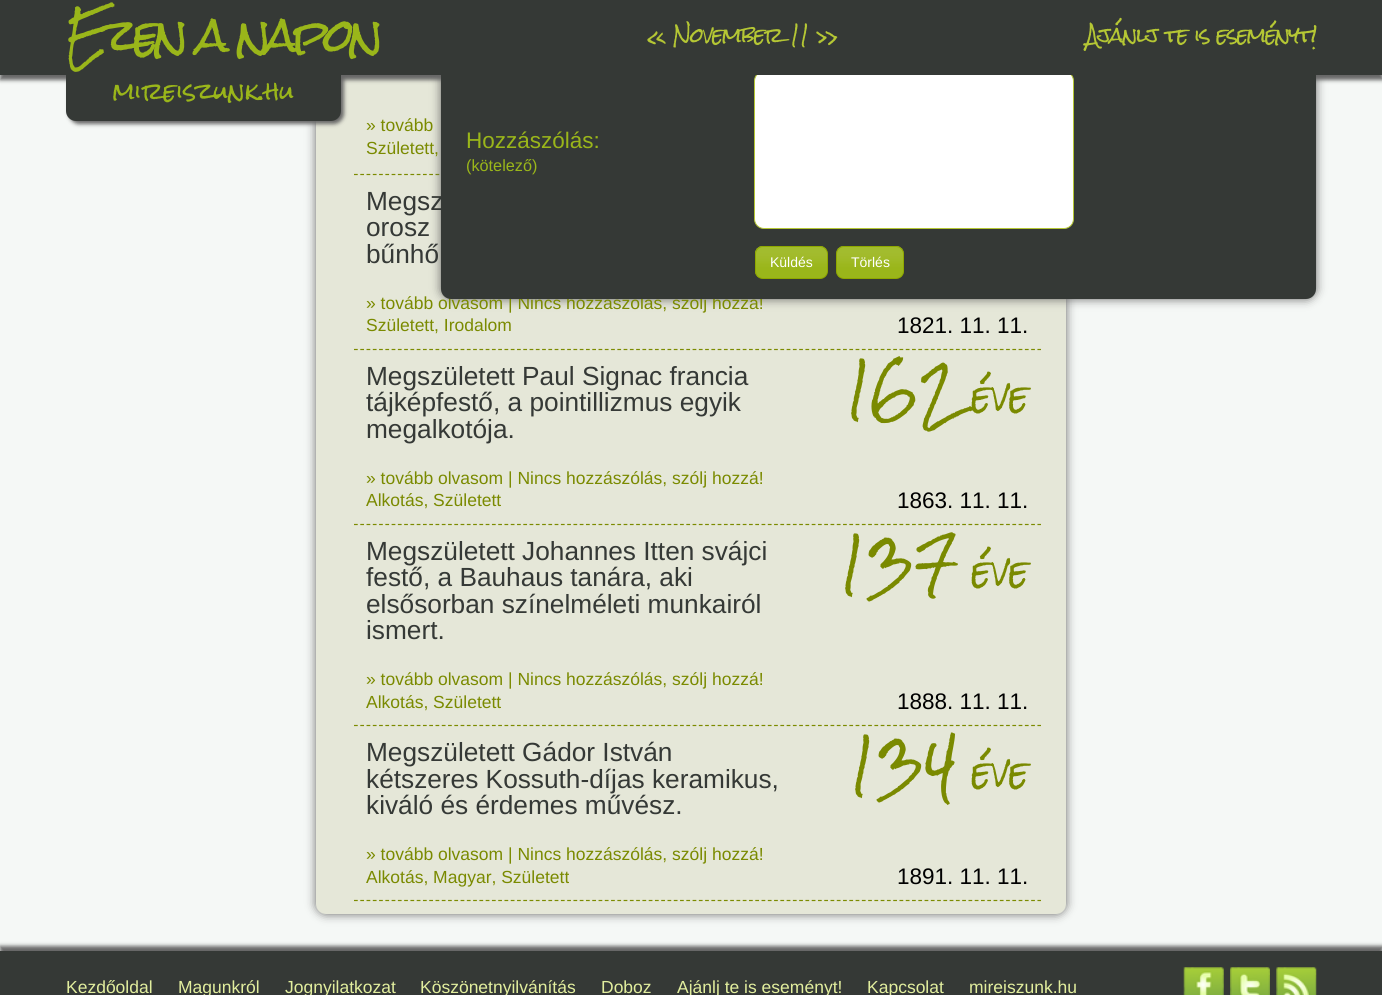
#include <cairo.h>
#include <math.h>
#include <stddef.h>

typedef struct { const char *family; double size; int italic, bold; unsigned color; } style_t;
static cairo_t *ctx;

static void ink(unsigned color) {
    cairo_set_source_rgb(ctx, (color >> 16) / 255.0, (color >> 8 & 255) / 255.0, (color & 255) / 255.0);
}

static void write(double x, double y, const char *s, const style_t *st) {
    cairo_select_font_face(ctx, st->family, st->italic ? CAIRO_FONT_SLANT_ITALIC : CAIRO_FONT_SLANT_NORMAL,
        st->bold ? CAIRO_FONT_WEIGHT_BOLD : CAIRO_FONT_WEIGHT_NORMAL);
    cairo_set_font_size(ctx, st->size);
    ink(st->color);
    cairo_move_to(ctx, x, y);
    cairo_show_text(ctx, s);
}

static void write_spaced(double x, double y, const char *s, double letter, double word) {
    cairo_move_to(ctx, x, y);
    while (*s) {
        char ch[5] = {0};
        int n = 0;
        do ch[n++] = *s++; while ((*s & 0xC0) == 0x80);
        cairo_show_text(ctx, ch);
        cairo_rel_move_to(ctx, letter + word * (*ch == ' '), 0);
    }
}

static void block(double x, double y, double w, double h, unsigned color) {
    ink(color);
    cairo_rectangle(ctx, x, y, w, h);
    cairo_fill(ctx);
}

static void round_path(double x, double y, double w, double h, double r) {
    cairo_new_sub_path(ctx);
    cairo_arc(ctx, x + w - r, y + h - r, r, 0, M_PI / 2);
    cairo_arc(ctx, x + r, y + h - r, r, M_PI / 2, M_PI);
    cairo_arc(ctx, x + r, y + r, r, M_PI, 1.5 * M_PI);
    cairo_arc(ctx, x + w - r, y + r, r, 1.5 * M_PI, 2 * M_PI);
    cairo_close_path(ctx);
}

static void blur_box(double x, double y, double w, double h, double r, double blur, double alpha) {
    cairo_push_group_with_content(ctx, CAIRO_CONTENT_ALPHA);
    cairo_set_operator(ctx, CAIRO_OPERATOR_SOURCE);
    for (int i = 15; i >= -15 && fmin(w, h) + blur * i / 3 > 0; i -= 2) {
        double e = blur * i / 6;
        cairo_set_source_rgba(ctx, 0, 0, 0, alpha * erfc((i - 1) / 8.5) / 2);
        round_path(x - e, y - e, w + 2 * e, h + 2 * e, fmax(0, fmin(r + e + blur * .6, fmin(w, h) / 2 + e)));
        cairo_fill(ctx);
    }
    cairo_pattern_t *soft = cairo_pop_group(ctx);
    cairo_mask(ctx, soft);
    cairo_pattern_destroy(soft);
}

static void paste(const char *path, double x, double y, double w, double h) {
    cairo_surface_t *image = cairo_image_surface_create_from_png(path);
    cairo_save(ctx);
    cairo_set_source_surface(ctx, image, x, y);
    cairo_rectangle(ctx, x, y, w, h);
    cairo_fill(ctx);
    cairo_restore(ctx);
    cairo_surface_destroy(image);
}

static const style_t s1 = {"Liberation Sans", 17.5, 0, 0, 0x7a8a00};
static const style_t s2 = {"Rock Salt", 22.5, 0, 0, 0x9ab61a};
static const style_t s3 = {"Liberation Sans", 22.5, 0, 0, 0x9ab61a};
static const style_t s4 = {"Liberation Sans", 16.25, 0, 0, 0x9ab61a};
static const style_t s5 = {"Liberation Sans", 14, 0, 0, 0xffffff};
static const style_t s6 = {"Liberation Sans", 26.25, 0, 0, 0x353936};
static const style_t s7 = {"Liberation Sans", 22.5, 0, 0, 0x000000};
static const style_t s8 = {"Rock Salt", 52.5, 0, 0, 0x7a8a00};
static const style_t s9 = {"Rock Salt", 34, 0, 0, 0x7a8a00};
static const style_t s10 = {"Liberation Sans", 17.5, 0, 0, 0xe2ee9e};

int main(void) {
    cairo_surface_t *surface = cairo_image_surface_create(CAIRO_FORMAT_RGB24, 1382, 995);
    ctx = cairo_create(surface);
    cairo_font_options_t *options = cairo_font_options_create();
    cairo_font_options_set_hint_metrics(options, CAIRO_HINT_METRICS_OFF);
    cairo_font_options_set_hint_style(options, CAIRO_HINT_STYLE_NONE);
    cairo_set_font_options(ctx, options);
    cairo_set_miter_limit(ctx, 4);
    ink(0xf5f8f6);
    cairo_paint(ctx);
    ink(0x666666);
    blur_box(316, -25, 750, 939, 10, 5, 1);
    ink(0xe5e7d8);
    round_path(316, -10, 750, 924, 10);
    cairo_fill(ctx);
    ink(0x666666);
    blur_box(0, 5, 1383, 75, 0, 2, 1);
    blur_box(69, 64, 275, 60, 10, 2, 1);
    ink(0x353936);
    round_path(66, 61, 275, 60, 10);
    cairo_fill(ctx);
    cairo_new_path(ctx);
    cairo_move_to(ctx, 354, 174.5);
    cairo_line_to(ctx, 1041, 174.5);
    ink(0x7b8b00);
    cairo_set_line_width(ctx, 1.2);
    cairo_set_dash(ctx, (double[]){3.75, 2.52}, 2, 0);
    cairo_stroke(ctx);
    ink(0x666666);
    blur_box(441, -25, 875, 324, 10, 5, 1);
    write(366, 309, "» tovább olvasom | Nincs hozzászólás, szólj hozzá!", &s1);
    ink(0x353936);
    round_path(441, -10, 875, 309, 10);
    cairo_fill(ctx);
    ink(0xffffff);
    round_path(754.5, 71.5, 319, 157, 9.5);
    cairo_fill_preserve(ctx);
    ink(0xb5c734);
    cairo_set_line_width(ctx, 1);
    cairo_set_dash(ctx, NULL, 0, 0);
    cairo_stroke(ctx);
    block(0, 0, 1382, 75, 0x353936);
    cairo_select_font_face(ctx, "Rock Salt", CAIRO_FONT_SLANT_NORMAL, CAIRO_FONT_WEIGHT_NORMAL);
    cairo_set_font_size(ctx, 45);
    ink(0x9ab61a);
    write_spaced(66, 53, "Ezen a napon", -5, 0);
    cairo_set_font_size(ctx, 20);
    ink(0xb5c734);
    write_spaced(647, 43, "« November 11 »", -1.25, 0);
    write_spaced(1086, 43, "Ajánlj te is eseményt!", -1.25, 0);
    write(113, 100, "mireiszunk.hu", &s2);
    write(366, 131, "» tovább", &s1);
    write(366, 154, "Született,", &s1);
    write(466, 148, "Hozzászólás:", &s3);
    write(466, 171, "(kötelező)", &s4);
    paste("pic1.png", 755, 246, 73, 33);
    round_path(755.5, 246.5, 72, 32, 7.5);
    ink(0x8fa800);
    cairo_stroke(ctx);
    write(770, 267, "Küldés", &s5);
    paste("pic2.png", 836, 246, 68, 32);
    round_path(836.5, 246.5, 67, 32, 7.5);
    ink(0x8fa800);
    cairo_stroke(ctx);
    write(851, 267, "Törlés", &s5);
    cairo_new_path(ctx);
    cairo_move_to(ctx, 354, 349.5);
    cairo_line_to(ctx, 1041, 349.5);
    ink(0x7b8b00);
    cairo_set_line_width(ctx, 1.2);
    cairo_set_dash(ctx, (double[]){3.75, 2.52}, 2, 0);
    cairo_stroke(ctx);
    write(366, 210, "Megsz", &s6);
    write(366, 236, "orosz", &s6);
    write(366, 263, "bűnhő", &s6);
    write(366, 331, "Született, Irodalom", &s1);
    write(897, 333, "1821. 11. 11.", &s7);
    cairo_new_path(ctx);
    cairo_move_to(ctx, 354, 524.5);
    cairo_line_to(ctx, 1041, 524.5);
    ink(0x7b8b00);
    cairo_stroke(ctx);
    write(366, 385, "Megszületett Paul Signac francia", &s6);
    write(366, 411, "tájképfestő, a pointillizmus egyik", &s6);
    write(366, 438, "megalkotója.", &s6);
    write(844, 410, "162", &s8);
    write(972, 410, "éve", &s9);
    write(366, 484, "» tovább olvasom | Nincs hozzászólás, szólj hozzá!", &s1);
    write(366, 506, "Alkotás, Született", &s1);
    write(897, 508, "1863. 11. 11.", &s7);
    cairo_new_path(ctx);
    cairo_move_to(ctx, 354, 725.5);
    cairo_line_to(ctx, 1041, 725.5);
    ink(0x7b8b00);
    cairo_stroke(ctx);
    write(366, 560, "Megszületett Johannes Itten svájci", &s6);
    write(366, 586, "festő, a Bauhaus tanára, aki", &s6);
    write(366, 613, "elsősorban színelméleti munkairól", &s6);
    write(366, 639, "ismert.", &s6);
    write(838, 585, "137", &s8);
    write(972, 585, "éve", &s9);
    write(366, 685, "» tovább olvasom | Nincs hozzászólás, szólj hozzá!", &s1);
    write(366, 708, "Alkotás, Született", &s1);
    write(897, 709, "1888. 11. 11.", &s7);
    cairo_new_path(ctx);
    cairo_move_to(ctx, 354, 900.5);
    cairo_line_to(ctx, 1041, 900.5);
    ink(0x7b8b00);
    cairo_stroke(ctx);
    write(366, 761, "Megszületett Gádor István", &s6);
    write(366, 788, "kétszeres Kossuth-díjas keramikus,", &s6);
    write(366, 814, "kiváló és érdemes művész.", &s6);
    write(848, 786, "134", &s8);
    write(972, 786, "éve", &s9);
    write(366, 860, "» tovább olvasom | Nincs hozzászólás, szólj hozzá!", &s1);
    write(366, 883, "Alkotás, Magyar, Született", &s1);
    write(897, 884, "1891. 11. 11.", &s7);
    ink(0x666666);
    blur_box(0, 946, 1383, 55, 0, 2, 1);
    block(0, 951, 1382, 44, 0x353936);
    write(66, 993, "Kezdőoldal", &s10);
    write(178, 993, "Magunkról", &s10);
    write(285, 993, "Jognyilatkozat", &s10);
    write(420, 993, "Köszönetnyilvánítás", &s10);
    write(601, 993, "Doboz", &s10);
    write(677, 993, "Ajánlj te is eseményt!", &s10);
    write(867, 993, "Kapcsolat", &s10);
    write(969, 993, "mireiszunk.hu", &s10);
    paste("pic3.png", 1183, 967, 41, 28);
    paste("pic4.png", 1230, 967, 40, 28);
    paste("pic5.png", 1276, 967, 41, 28);
    cairo_surface_write_to_png(surface, "screenshot.png");
    cairo_font_options_destroy(options);
    cairo_destroy(ctx);
    cairo_surface_destroy(surface);
    return 0;
}
